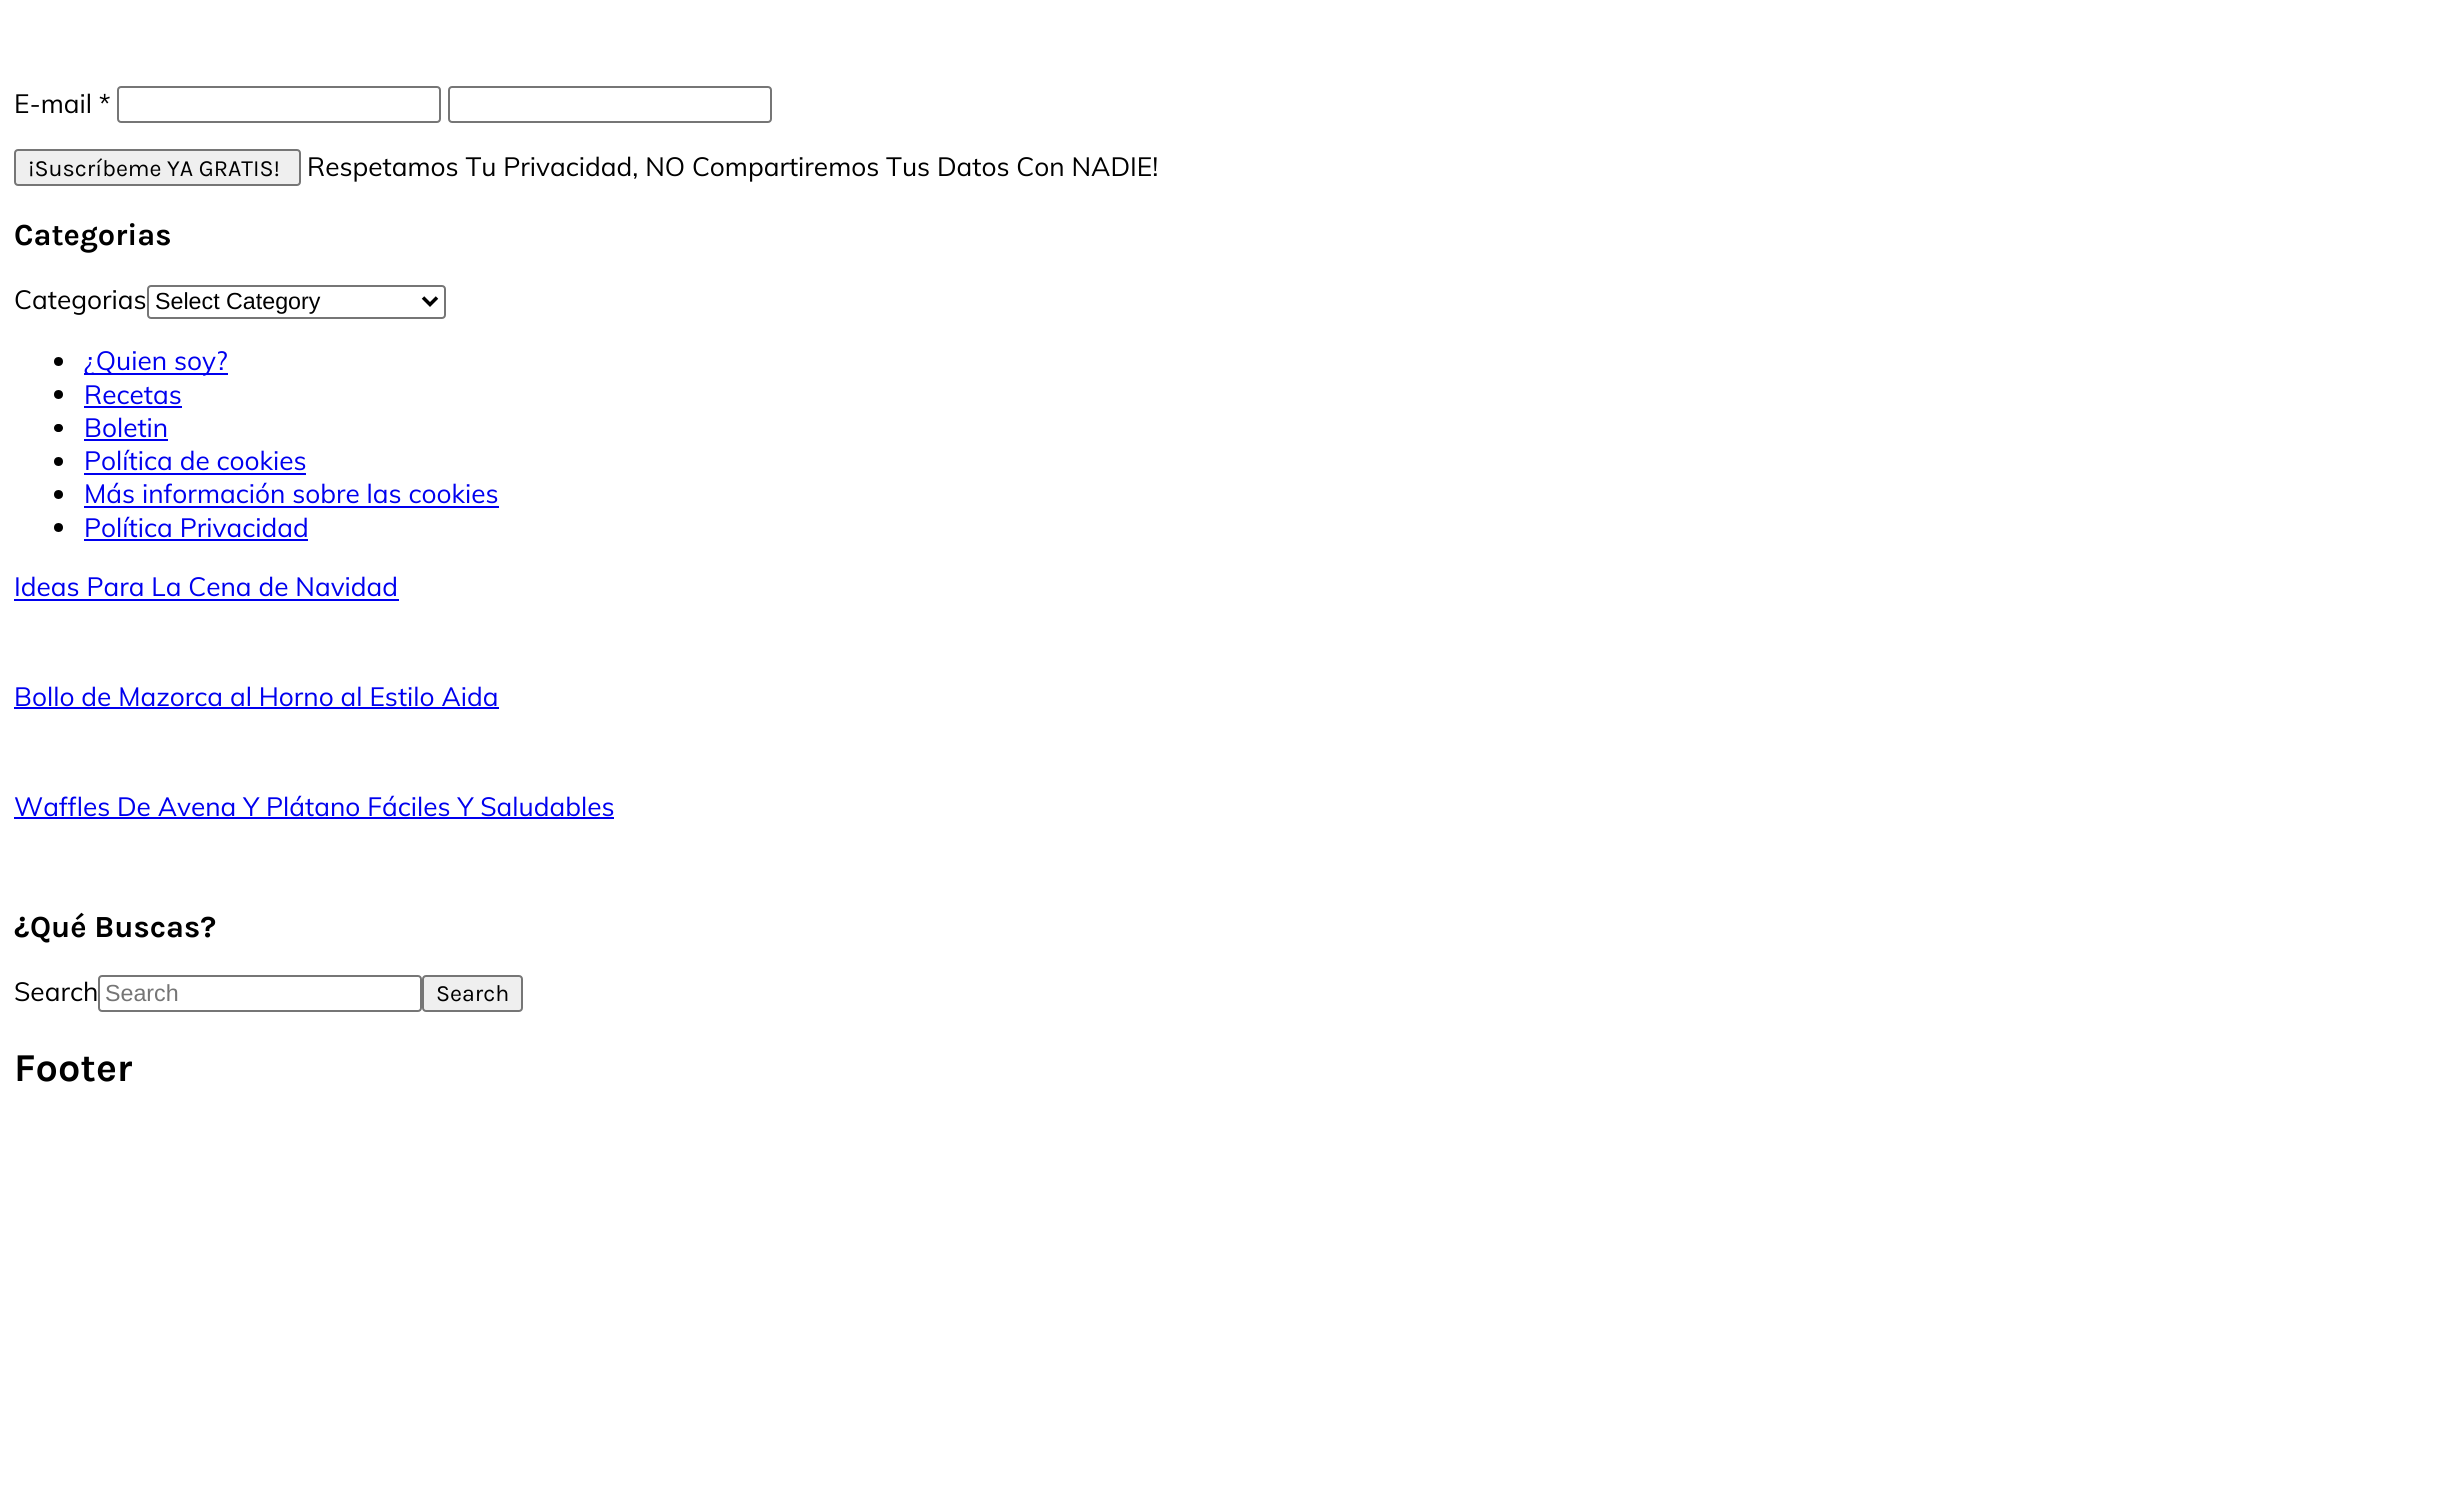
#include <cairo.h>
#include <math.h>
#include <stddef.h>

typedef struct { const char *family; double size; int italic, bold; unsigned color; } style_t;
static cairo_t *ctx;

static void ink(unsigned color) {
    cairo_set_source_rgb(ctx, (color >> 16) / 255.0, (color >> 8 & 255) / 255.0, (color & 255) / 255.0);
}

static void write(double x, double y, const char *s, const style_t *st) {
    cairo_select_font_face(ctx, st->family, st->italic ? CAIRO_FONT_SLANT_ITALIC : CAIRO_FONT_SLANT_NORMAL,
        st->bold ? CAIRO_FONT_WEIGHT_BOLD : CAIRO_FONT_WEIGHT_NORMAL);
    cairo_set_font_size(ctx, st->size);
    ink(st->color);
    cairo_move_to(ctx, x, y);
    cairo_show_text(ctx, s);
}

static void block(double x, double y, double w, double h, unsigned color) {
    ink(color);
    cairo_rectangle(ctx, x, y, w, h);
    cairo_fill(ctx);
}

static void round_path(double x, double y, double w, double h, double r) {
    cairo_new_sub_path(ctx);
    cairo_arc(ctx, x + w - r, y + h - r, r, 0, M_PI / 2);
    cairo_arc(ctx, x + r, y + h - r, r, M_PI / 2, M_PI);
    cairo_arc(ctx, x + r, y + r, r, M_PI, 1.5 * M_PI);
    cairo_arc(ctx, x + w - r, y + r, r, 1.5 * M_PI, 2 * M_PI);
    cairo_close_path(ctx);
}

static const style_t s1 = {"Muli", 26.25, 0, 0, 0x000000};
static const style_t s2 = {"Karla", 23.25, 0, 0, 0x000000};
static const style_t s3 = {"Karla", 30.75, 0, 1, 0x000000};
static const style_t s4 = {"Liberation Sans", 23.25, 0, 0, 0x000000};
static const style_t s5 = {"Muli", 26.25, 0, 0, 0x0000ee};
static const style_t s6 = {"Liberation Sans", 23.25, 0, 0, 0x757575};
static const style_t s7 = {"Karla", 39.5, 0, 1, 0x000000};

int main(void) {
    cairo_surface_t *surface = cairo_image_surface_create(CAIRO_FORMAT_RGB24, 2463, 1502);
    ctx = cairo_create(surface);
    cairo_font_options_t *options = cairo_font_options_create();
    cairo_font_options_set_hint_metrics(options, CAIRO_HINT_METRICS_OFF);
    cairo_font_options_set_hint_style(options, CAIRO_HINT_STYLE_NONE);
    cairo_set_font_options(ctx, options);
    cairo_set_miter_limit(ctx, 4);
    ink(0xffffff);
    cairo_paint(ctx);
    write(14, 113, "E-mail *", &s1);
    round_path(118, 87, 322, 35, 3);
    ink(0x767676);
    cairo_stroke(ctx);
    round_path(449, 87, 322, 35, 3);
    cairo_stroke(ctx);
    ink(0xefefef);
    round_path(15, 150, 285, 35, 3);
    cairo_fill_preserve(ctx);
    ink(0x767676);
    cairo_stroke(ctx);
    write(28, 176, "¡Suscríbeme YA GRATIS!", &s2);
    write(307, 176, "Respetamos Tu Privacidad, NO Compartiremos Tus Datos Con NADIE!", &s1);
    write(14, 245, "Categorias", &s3);
    write(14, 309, "Categorias", &s1);
    round_path(148, 286, 297, 32, 3);
    ink(0x767676);
    cairo_stroke(ctx);
    cairo_new_path(ctx);
    cairo_move_to(ctx, 423, 297.5);
    cairo_line_to(ctx, 430, 304.5);
    cairo_line_to(ctx, 437, 297.5);
    ink(0x000000);
    cairo_set_line_width(ctx, 3.5);
    cairo_stroke(ctx);
    write(155, 309, "Select Category", &s4);
    cairo_new_path(ctx);
    cairo_arc(ctx, 58.5, 361.5, 4.5, 0, 2 * M_PI);
    cairo_fill(ctx);
    block(84, 373, 144, 2, 0x0000ee);
    write(84, 370, "¿Quien soy?", &s5);
    ink(0x000000);
    cairo_new_path(ctx);
    cairo_arc(ctx, 58.5, 394.5, 4.5, 0, 2 * M_PI);
    cairo_fill(ctx);
    write(84, 404, "Recetas", &s5);
    block(84, 406, 98, 2, 0x0000ee);
    ink(0x000000);
    round_path(54, 424, 9, 8, 4);
    cairo_fill(ctx);
    write(84, 437, "Boletin", &s5);
    block(84, 439, 84, 2, 0x0000ee);
    ink(0x000000);
    cairo_new_path(ctx);
    cairo_arc(ctx, 58.5, 461.5, 4.5, 0, 2 * M_PI);
    cairo_fill(ctx);
    write(84, 470, "Política de cookies", &s5);
    block(84, 473, 222, 2, 0x0000ee);
    ink(0x000000);
    cairo_new_path(ctx);
    cairo_arc(ctx, 58.5, 494.5, 4.5, 0, 2 * M_PI);
    cairo_fill(ctx);
    write(84, 503, "Más información sobre las cookies", &s5);
    block(84, 506, 415, 2, 0x0000ee);
    ink(0x000000);
    cairo_new_path(ctx);
    cairo_arc(ctx, 58.5, 527.5, 4.5, 0, 2 * M_PI);
    cairo_fill(ctx);
    write(84, 537, "Política Privacidad", &s5);
    block(84, 539, 224, 2, 0x0000ee);
    write(14, 596, "Ideas Para La Cena de Navidad", &s5);
    block(14, 599, 385, 2, 0x0000ee);
    write(14, 706, "Bollo de Mazorca al Horno al Estilo Aida", &s5);
    block(14, 707, 485, 2, 0x0000ee);
    write(14, 816, "Waffles De Avena Y Plátano Fáciles Y Saludables", &s5);
    block(14, 817, 600, 2, 0x0000ee);
    write(14, 937, "¿Qué Buscas?", &s3);
    write(14, 1001, "Search", &s1);
    round_path(99, 976, 322, 35, 3);
    ink(0x767676);
    cairo_set_line_width(ctx, 2);
    cairo_stroke(ctx);
    write(105, 1001, "Search", &s6);
    ink(0xefefef);
    round_path(423, 976, 99, 35, 3);
    cairo_fill_preserve(ctx);
    ink(0x767676);
    cairo_stroke(ctx);
    write(436, 1001, "Search", &s2);
    write(14, 1081, "Footer", &s7);
    cairo_surface_write_to_png(surface, "screenshot.png");
    cairo_font_options_destroy(options);
    cairo_destroy(ctx);
    cairo_surface_destroy(surface);
    return 0;
}
